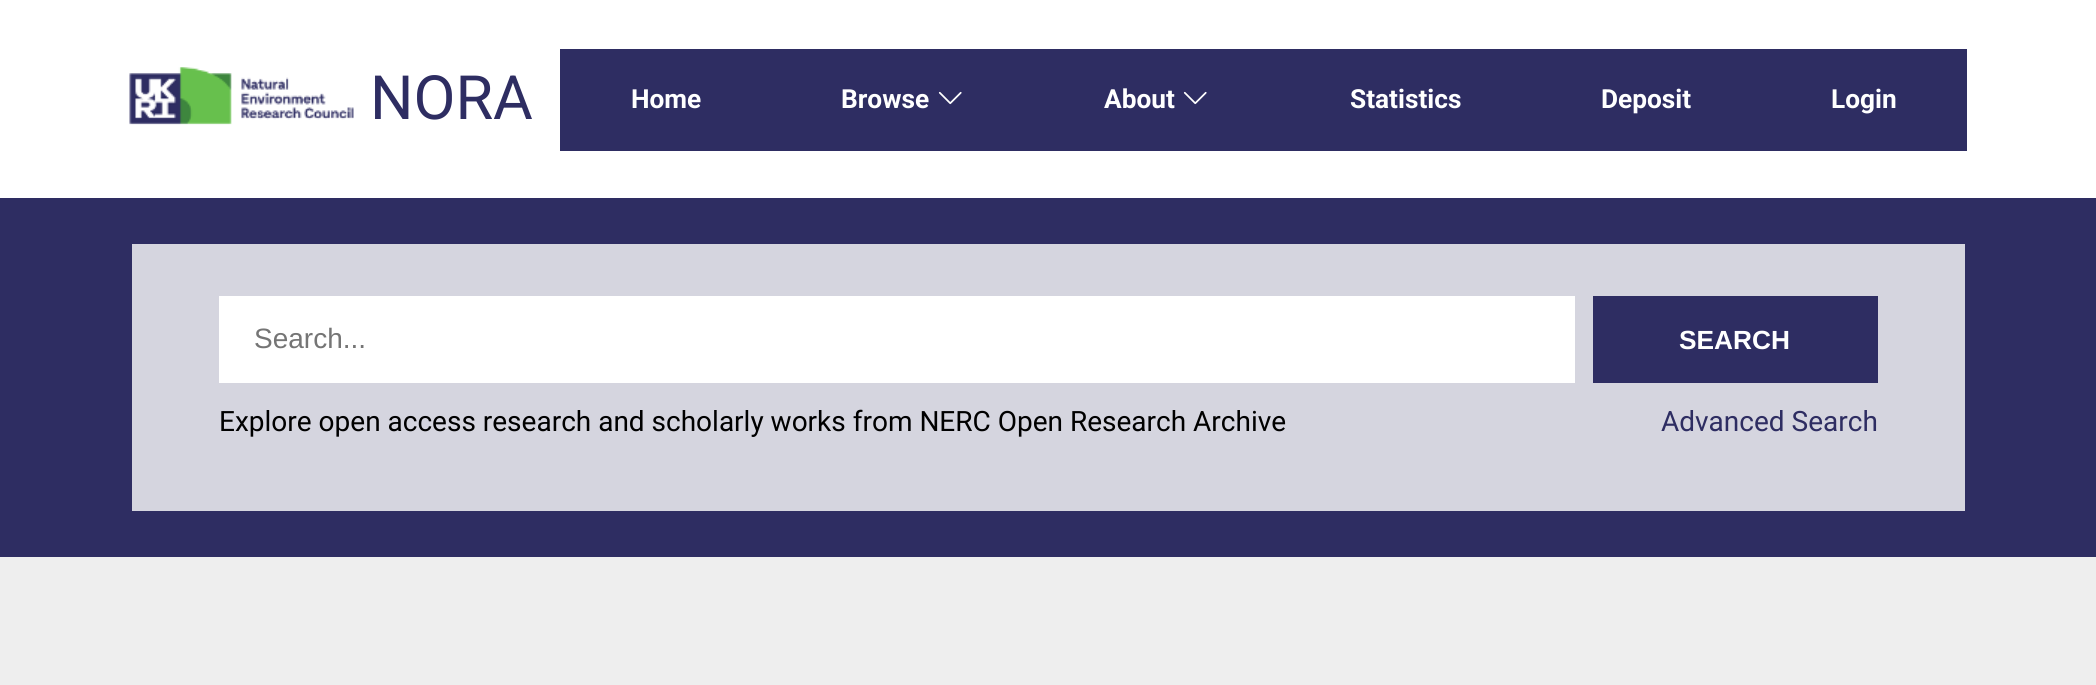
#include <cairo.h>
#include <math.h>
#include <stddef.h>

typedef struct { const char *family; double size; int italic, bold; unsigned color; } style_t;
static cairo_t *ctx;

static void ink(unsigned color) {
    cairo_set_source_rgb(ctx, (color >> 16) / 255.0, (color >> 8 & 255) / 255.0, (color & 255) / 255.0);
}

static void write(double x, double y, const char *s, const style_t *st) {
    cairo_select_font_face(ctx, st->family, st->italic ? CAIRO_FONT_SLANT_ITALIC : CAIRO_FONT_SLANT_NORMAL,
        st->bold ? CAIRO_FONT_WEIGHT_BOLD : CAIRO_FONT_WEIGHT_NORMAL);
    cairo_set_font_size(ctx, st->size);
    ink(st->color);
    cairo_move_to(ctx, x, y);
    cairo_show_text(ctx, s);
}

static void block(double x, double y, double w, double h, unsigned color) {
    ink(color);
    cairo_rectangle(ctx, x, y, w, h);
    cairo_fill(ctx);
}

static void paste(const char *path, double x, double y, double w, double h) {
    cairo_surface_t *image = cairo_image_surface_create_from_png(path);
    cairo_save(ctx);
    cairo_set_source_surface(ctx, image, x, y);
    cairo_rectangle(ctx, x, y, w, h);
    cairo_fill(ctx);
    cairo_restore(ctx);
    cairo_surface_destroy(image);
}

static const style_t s1 = {"Roboto", 61, 0, 0, 0x2e2d62};
static const style_t s2 = {"Roboto", 26.25, 0, 1, 0xffffff};
static const style_t s3 = {"Liberation Sans", 28, 0, 0, 0x757575};
static const style_t s4 = {"Liberation Sans", 26.25, 0, 1, 0xffffff};
static const style_t s5 = {"Roboto", 28, 0, 0, 0x000000};
static const style_t s6 = {"Roboto", 28, 0, 0, 0x2e2d62};

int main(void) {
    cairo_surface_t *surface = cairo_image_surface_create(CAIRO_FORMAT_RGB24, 2096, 685);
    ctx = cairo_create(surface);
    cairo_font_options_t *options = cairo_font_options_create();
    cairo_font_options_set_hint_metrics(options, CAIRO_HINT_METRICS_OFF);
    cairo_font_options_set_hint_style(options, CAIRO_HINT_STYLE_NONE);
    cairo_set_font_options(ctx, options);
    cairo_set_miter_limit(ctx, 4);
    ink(0xeeeeee);
    cairo_paint(ctx);
    block(0, 0, 2096, 198, 0xffffff);
    paste("pic1.png", 129, 67, 225, 58);
    write(370, 119, "NORA", &s1);
    block(560, 49, 1407, 102, 0x2e2d62);
    write(631, 108, "Home", &s2);
    write(841, 108, "Browse", &s2);
    paste("pic2.png", 938, 91, 24, 14);
    write(1104, 108, "About", &s2);
    paste("pic2.png", 1183, 91, 24, 14);
    write(1350, 108, "Statistics", &s2);
    write(1601, 108, "Deposit", &s2);
    write(1831, 108, "Login", &s2);
    block(0, 198, 2096, 359, 0x2e2d62);
    block(132, 244, 1833, 267, 0xd5d5df);
    block(219, 296, 1356, 87, 0xffffff);
    write(254, 348, "Search...", &s3);
    block(1593, 296, 285, 87, 0x2e2d62);
    write(1679, 349, "SEARCH", &s4);
    write(219, 431, "Explore open access research and scholarly works from NERC Open Research Archive", &s5);
    write(1661, 431, "Advanced Search", &s6);
    cairo_surface_write_to_png(surface, "screenshot.png");
    cairo_font_options_destroy(options);
    cairo_destroy(ctx);
    cairo_surface_destroy(surface);
    return 0;
}
